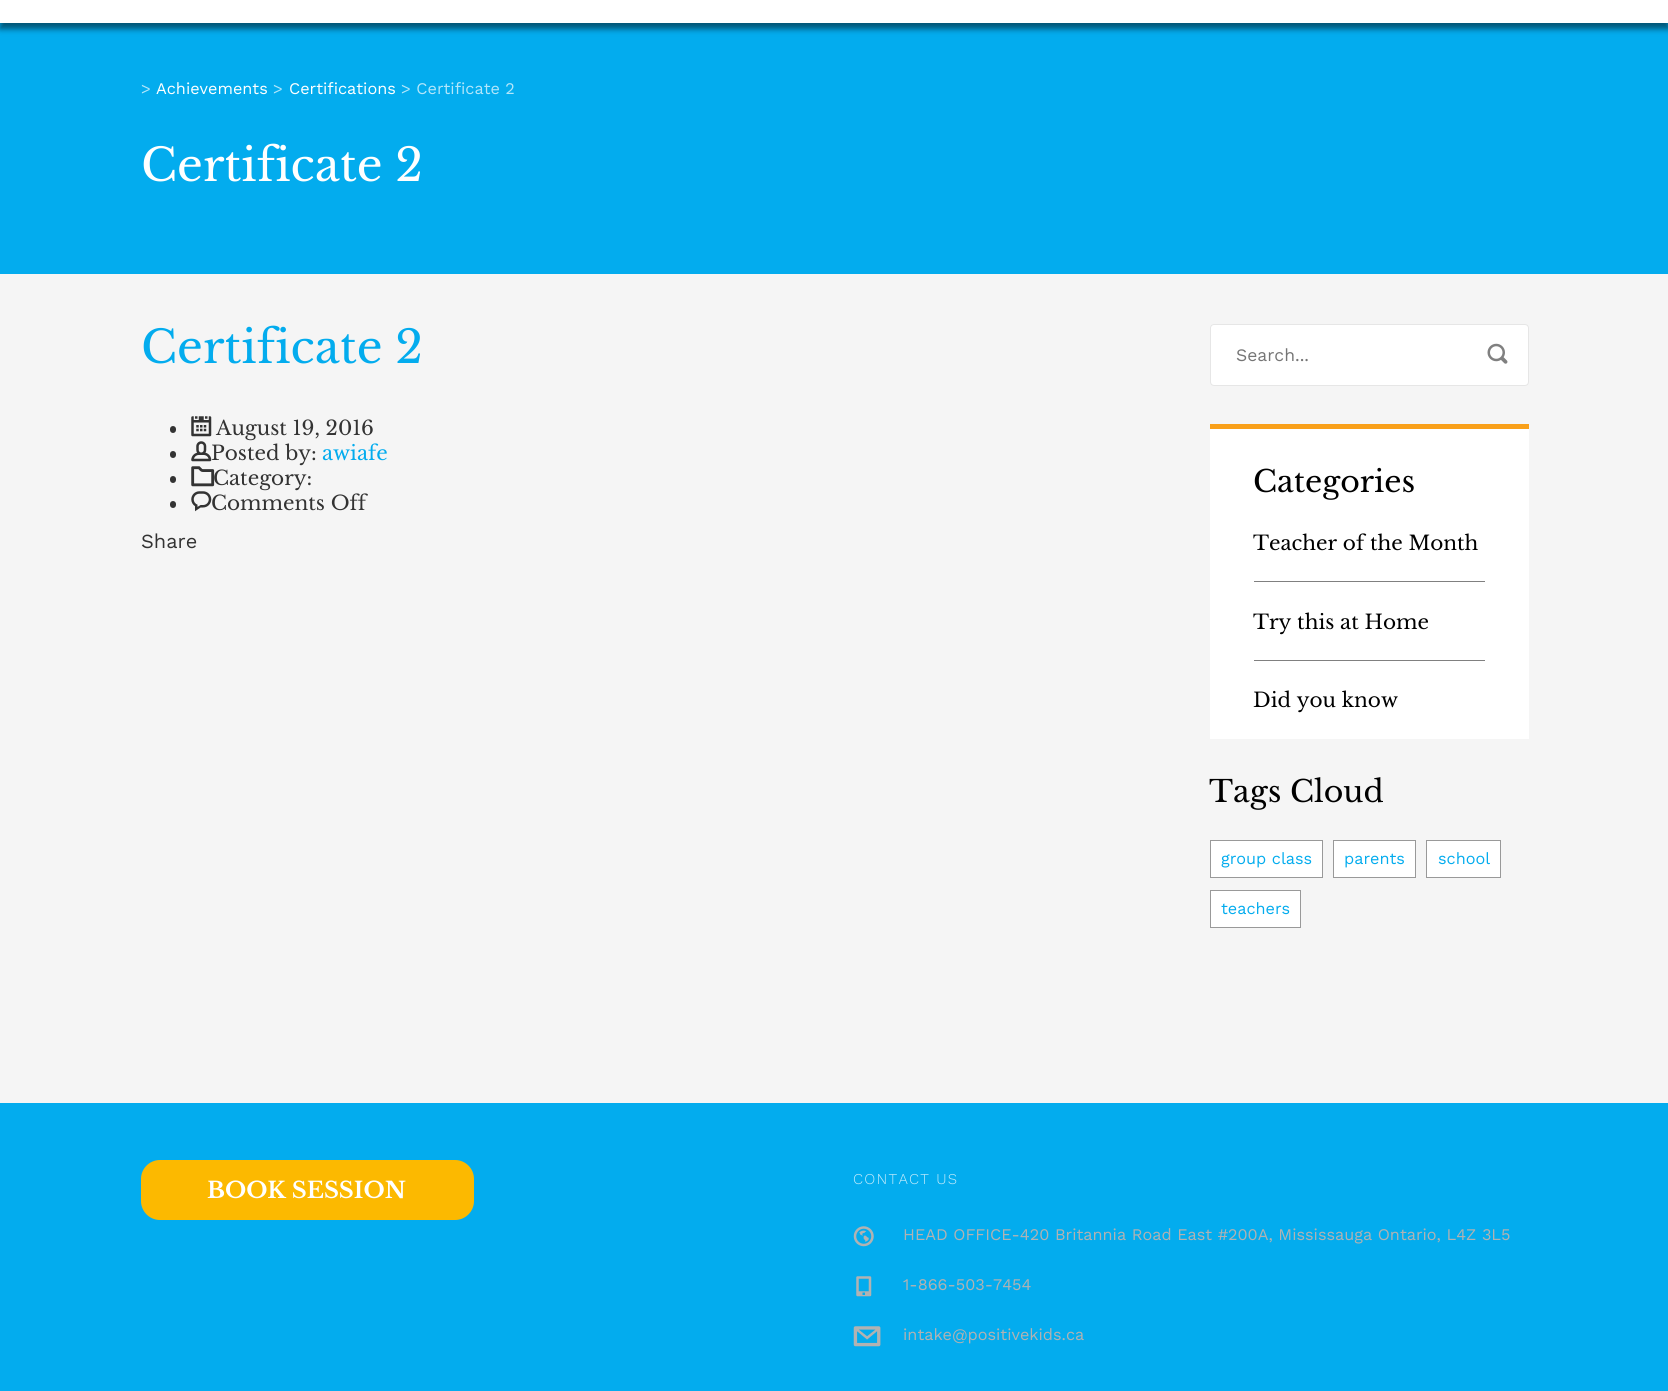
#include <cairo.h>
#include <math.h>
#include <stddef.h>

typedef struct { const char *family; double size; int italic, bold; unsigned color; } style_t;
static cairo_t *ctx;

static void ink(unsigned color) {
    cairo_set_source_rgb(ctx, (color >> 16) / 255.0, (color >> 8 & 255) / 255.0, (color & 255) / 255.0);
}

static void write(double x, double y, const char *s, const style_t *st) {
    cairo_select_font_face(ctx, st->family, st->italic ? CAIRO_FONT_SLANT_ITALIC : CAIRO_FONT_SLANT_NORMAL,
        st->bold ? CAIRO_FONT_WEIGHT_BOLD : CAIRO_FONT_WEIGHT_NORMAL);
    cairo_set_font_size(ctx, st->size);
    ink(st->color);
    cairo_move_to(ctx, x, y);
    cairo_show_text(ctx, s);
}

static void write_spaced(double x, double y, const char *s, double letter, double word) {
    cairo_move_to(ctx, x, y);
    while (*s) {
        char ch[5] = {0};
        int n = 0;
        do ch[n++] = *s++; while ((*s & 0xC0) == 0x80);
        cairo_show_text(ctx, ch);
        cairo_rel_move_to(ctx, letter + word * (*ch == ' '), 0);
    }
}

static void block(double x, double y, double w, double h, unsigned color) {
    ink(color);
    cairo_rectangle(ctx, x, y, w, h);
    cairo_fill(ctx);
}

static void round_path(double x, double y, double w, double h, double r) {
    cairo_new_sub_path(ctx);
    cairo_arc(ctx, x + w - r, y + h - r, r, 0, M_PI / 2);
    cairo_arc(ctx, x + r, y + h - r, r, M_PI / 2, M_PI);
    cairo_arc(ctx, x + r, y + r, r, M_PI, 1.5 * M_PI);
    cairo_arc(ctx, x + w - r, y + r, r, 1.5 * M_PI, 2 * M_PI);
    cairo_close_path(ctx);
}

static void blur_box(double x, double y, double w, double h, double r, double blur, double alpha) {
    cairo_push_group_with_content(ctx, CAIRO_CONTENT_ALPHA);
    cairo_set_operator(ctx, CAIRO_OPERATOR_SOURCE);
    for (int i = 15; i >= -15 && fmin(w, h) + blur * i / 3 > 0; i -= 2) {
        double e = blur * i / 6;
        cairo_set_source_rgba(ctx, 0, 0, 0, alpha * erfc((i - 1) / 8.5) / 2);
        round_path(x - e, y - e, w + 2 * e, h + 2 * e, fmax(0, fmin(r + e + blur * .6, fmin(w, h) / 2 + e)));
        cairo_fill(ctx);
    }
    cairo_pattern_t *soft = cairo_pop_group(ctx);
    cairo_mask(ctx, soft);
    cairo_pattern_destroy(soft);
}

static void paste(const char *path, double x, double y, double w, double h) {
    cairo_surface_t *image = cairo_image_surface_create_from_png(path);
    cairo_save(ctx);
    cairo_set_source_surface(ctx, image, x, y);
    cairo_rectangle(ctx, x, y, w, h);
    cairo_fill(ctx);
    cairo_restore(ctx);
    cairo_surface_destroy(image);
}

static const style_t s1 = {"Work Sans", 16.25, 0, 0, 0xb3e6fa};
static const style_t s2 = {"Work Sans", 16.25, 0, 0, 0xffffff};
static const style_t s3 = {"Libre Baskerville", 45, 0, 0, 0xffffff};
static const style_t s4 = {"Libre Baskerville", 45, 0, 0, 0x03acee};
static const style_t s5 = {"Libre Baskerville", 20, 0, 0, 0x333333};
static const style_t s6 = {"Libre Baskerville", 20, 0, 0, 0x03acee};
static const style_t s7 = {"Work Sans", 20, 0, 0, 0x333333};
static const style_t s8 = {"Work Sans", 17.5, 0, 0, 0x757575};
static const style_t s9 = {"Libre Baskerville", 30, 0, 0, 0x000000};
static const style_t s10 = {"Libre Baskerville", 20, 0, 0, 0x000000};
static const style_t s11 = {"Work Sans", 16.25, 0, 0, 0x03acee};
static const style_t s12 = {"Libre Baskerville", 22.5, 0, 1, 0xffffff};
static const style_t s13 = {"Work Sans", 16.25, 0, 0, 0xb2b2b2};

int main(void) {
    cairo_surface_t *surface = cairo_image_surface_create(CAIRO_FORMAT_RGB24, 1668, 1391);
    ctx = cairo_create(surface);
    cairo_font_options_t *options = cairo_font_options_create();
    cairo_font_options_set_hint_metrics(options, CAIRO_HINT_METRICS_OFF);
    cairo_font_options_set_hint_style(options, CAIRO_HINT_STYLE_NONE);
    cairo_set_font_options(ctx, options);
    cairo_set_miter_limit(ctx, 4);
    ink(0xf5f5f5);
    cairo_paint(ctx);
    block(0, 23, 1668, 251, 0x03acee);
    ink(0x000000);
    blur_box(0, -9, 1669, 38, 0, 3, 0.5);
    block(0, 0, 1668, 23, 0xffffff);
    write(141, 94, ">", &s1);
    write(156, 94, "Achievements", &s2);
    write(273, 94, ">", &s1);
    write(289, 94, "Certifications", &s2);
    write(401, 94, "> Certificate 2", &s1);
    write(141, 181, "Certificate 2", &s3);
    write(141, 363, "Certificate 2", &s4);
    ink(0x333333);
    round_path(170, 426, 6, 7, 3);
    cairo_fill(ctx);
    paste("pic1.png", 191, 416, 21, 21);
    write(216, 435, "August 19, 2016", &s5);
    round_path(170, 451, 6, 7, 3);
    cairo_fill(ctx);
    paste("pic2.png", 191, 441, 21, 21);
    write(211, 460, "Posted by:", &s5);
    write(322, 460, "awiafe", &s6);
    ink(0x333333);
    round_path(170, 476, 6, 7, 3);
    cairo_fill(ctx);
    paste("pic3.png", 191, 466, 24, 21);
    write(213, 485, "Category:", &s5);
    round_path(170, 501, 6, 7, 3);
    cairo_fill(ctx);
    paste("pic4.png", 191, 491, 21, 21);
    write(211, 510, "Comments Off", &s5);
    write(141, 548, "Share", &s7);
    ink(0xffffff);
    round_path(1210.5, 324.5, 318, 61, 3.5);
    cairo_fill_preserve(ctx);
    ink(0xe6e6e6);
    cairo_set_line_width(ctx, 1);
    cairo_stroke(ctx);
    write(1236, 361, "Search...", &s8);
    paste("pic5.png", 1487, 343, 21, 21);
    block(1210, 429, 319, 310, 0xffffff);
    block(1210, 424, 319, 5, 0xf9a01a);
    write(1253, 492, "Categories", &s9);
    block(1254, 581, 231, 1, 0x808080);
    write(1253, 550, "Teacher of the Month", &s10);
    block(1254, 660, 231, 1, 0x808080);
    write(1253, 629, "Try this at Home", &s10);
    write(1253, 707, "Did you know", &s10);
    write(1209, 802, "Tags Cloud", &s9);
    ink(0xffffff);
    cairo_rectangle(ctx, 1210.5, 840.5, 112, 37);
    cairo_fill_preserve(ctx);
    ink(0x999999);
    cairo_stroke(ctx);
    write(1221, 864, "group class", &s11);
    ink(0xffffff);
    cairo_rectangle(ctx, 1333.5, 840.5, 82, 37);
    cairo_fill_preserve(ctx);
    ink(0x999999);
    cairo_stroke(ctx);
    write(1344, 864, "parents", &s11);
    ink(0xffffff);
    cairo_rectangle(ctx, 1426.5, 840.5, 74, 37);
    cairo_fill_preserve(ctx);
    ink(0x999999);
    cairo_stroke(ctx);
    write(1438, 864, "school", &s11);
    ink(0xffffff);
    cairo_rectangle(ctx, 1210.5, 890.5, 90, 37);
    cairo_fill_preserve(ctx);
    ink(0x999999);
    cairo_stroke(ctx);
    write(1221, 914, "teachers", &s11);
    block(0, 1103, 1668, 288, 0x03acee);
    ink(0xfcb900);
    round_path(141, 1160, 333, 60, 19);
    cairo_fill(ctx);
    write(207, 1198, "BOOK SESSION", &s12);
    cairo_select_font_face(ctx, "Work Sans Light", CAIRO_FONT_SLANT_NORMAL, CAIRO_FONT_WEIGHT_NORMAL);
    cairo_set_font_size(ctx, 15);
    ink(0xc0eafb);
    write_spaced(853, 1184, "CONTACT US", 1.25, 0);
    paste("pic6.png", 853, 1226, 21, 21);
    write(903, 1240, "HEAD OFFICE-420 Britannia Road East #200A, Mississauga Ontario, L4Z 3L5", &s13);
    paste("pic7.png", 856, 1276, 16, 21);
    write(903, 1290, "1-866-503-7454", &s13);
    paste("pic8.png", 853, 1326, 28, 21);
    write(903, 1340, "intake@positivekids.ca", &s13);
    cairo_surface_write_to_png(surface, "screenshot.png");
    cairo_font_options_destroy(options);
    cairo_destroy(ctx);
    cairo_surface_destroy(surface);
    return 0;
}
